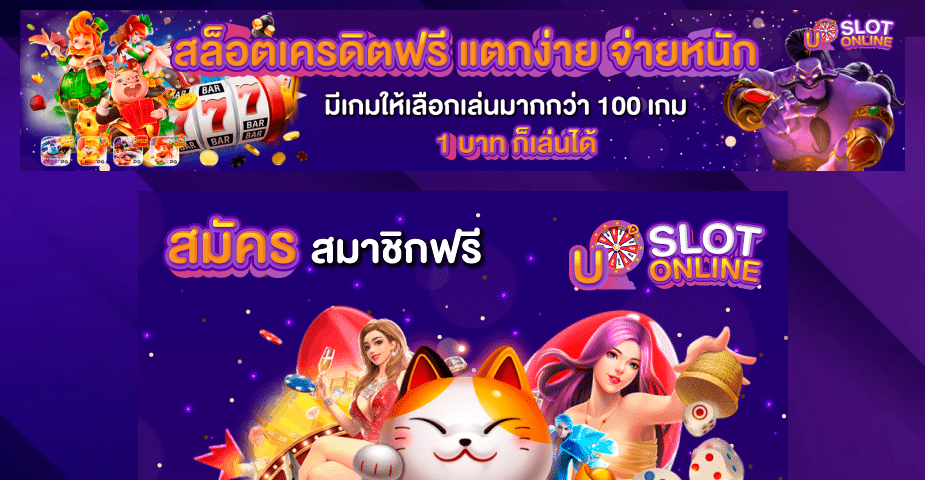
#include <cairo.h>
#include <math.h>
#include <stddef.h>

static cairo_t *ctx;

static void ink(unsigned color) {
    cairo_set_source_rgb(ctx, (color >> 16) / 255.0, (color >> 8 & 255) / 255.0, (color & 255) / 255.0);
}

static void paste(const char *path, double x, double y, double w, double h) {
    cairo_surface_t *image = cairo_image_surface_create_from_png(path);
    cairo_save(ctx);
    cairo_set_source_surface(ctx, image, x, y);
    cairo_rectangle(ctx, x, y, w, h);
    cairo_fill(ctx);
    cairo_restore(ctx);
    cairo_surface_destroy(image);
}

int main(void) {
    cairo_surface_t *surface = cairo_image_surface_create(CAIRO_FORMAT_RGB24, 925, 480);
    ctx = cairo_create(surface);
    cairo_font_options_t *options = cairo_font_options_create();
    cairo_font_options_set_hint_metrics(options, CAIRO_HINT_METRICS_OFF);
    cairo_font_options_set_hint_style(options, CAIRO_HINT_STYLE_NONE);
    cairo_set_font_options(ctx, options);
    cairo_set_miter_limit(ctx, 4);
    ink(0xffffff);
    cairo_paint(ctx);
    paste("pic1.png", 0, 0, 925, 480);
    paste("pic2.png", 20, 10, 885, 161);
    paste("pic3.png", 138, 191, 650, 289);
    cairo_surface_write_to_png(surface, "screenshot.png");
    cairo_font_options_destroy(options);
    cairo_destroy(ctx);
    cairo_surface_destroy(surface);
    return 0;
}
